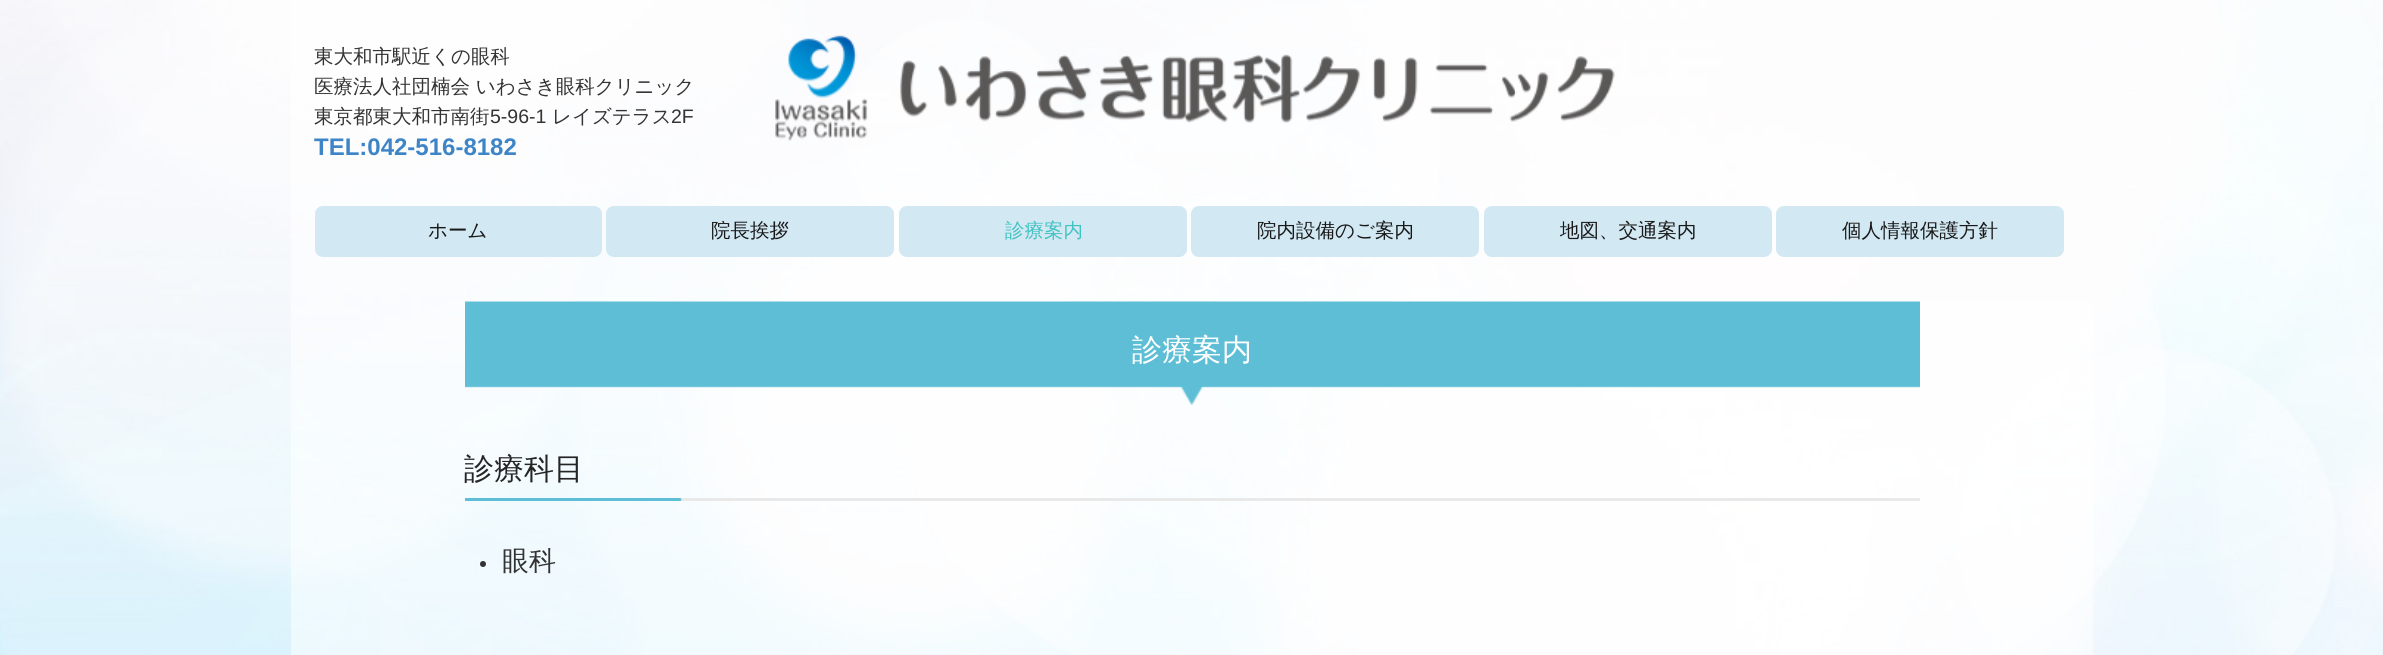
#include <cairo.h>
#include <math.h>
#include <stddef.h>

typedef struct { const char *family; double size; int italic, bold; unsigned color; } style_t;
static cairo_t *ctx;

static void ink(unsigned color) {
    cairo_set_source_rgb(ctx, (color >> 16) / 255.0, (color >> 8 & 255) / 255.0, (color & 255) / 255.0);
}

static void write(double x, double y, const char *s, const style_t *st) {
    cairo_select_font_face(ctx, st->family, st->italic ? CAIRO_FONT_SLANT_ITALIC : CAIRO_FONT_SLANT_NORMAL,
        st->bold ? CAIRO_FONT_WEIGHT_BOLD : CAIRO_FONT_WEIGHT_NORMAL);
    cairo_set_font_size(ctx, st->size);
    ink(st->color);
    cairo_move_to(ctx, x, y);
    cairo_show_text(ctx, s);
}

static void round_path(double x, double y, double w, double h, double r) {
    cairo_new_sub_path(ctx);
    cairo_arc(ctx, x + w - r, y + h - r, r, 0, M_PI / 2);
    cairo_arc(ctx, x + r, y + h - r, r, M_PI / 2, M_PI);
    cairo_arc(ctx, x + r, y + r, r, M_PI, 1.5 * M_PI);
    cairo_arc(ctx, x + w - r, y + r, r, 1.5 * M_PI, 2 * M_PI);
    cairo_close_path(ctx);
}

static void paste(const char *path, double x, double y, double w, double h) {
    cairo_surface_t *image = cairo_image_surface_create_from_png(path);
    cairo_save(ctx);
    cairo_set_source_surface(ctx, image, x, y);
    cairo_rectangle(ctx, x, y, w, h);
    cairo_fill(ctx);
    cairo_restore(ctx);
    cairo_surface_destroy(image);
}

static const style_t s1 = {"WenQuanYi Zen Hei Medium", 19.5, 0, 0, 0x333333};
static const style_t s2 = {"Liberation Sans", 19.5, 0, 0, 0x333333};
static const style_t s3 = {"Liberation Sans", 24, 0, 1, 0x3e85c7};
static const style_t s4 = {"WenQuanYi Zen Hei Medium", 19.5, 0, 0, 0x191919};
static const style_t s5 = {"WenQuanYi Zen Hei Medium", 19.5, 0, 0, 0x43c2c3};
static const style_t s6 = {"WenQuanYi Zen Hei Medium", 30, 0, 0, 0xffffff};
static const style_t s7 = {"WenQuanYi Zen Hei Medium", 30, 0, 0, 0x252525};
static const style_t s8 = {"WenQuanYi Zen Hei Medium", 27, 0, 0, 0x333333};

int main(void) {
    cairo_surface_t *surface = cairo_image_surface_create(CAIRO_FORMAT_RGB24, 2383, 655);
    ctx = cairo_create(surface);
    cairo_font_options_t *options = cairo_font_options_create();
    cairo_font_options_set_hint_metrics(options, CAIRO_HINT_METRICS_OFF);
    cairo_font_options_set_hint_style(options, CAIRO_HINT_STYLE_NONE);
    cairo_set_font_options(ctx, options);
    cairo_set_miter_limit(ctx, 4);
    ink(0xffffff);
    cairo_paint(ctx);
    paste("pic1.png", 0, 0, 2383, 655);
    cairo_set_source_rgba(ctx, 1, 1, 1, 0.5);
    cairo_rectangle(ctx, 291, 0, 1148, 302);
    cairo_fill(ctx);
    write(314, 63, "東大和市駅近くの眼科", &s1);
    write(314, 93, "医療法人社団楠会 いわさき眼科クリニック", &s1);
    write(314, 123, "東京都東大和市南街", &s1);
    write(490, 123, "5-96-1", &s2);
    write(552, 123, "レイズテラス", &s1);
    write(671, 123, "2F", &s2);
    write(314, 155, "TEL:042-516-8182", &s3);
    paste("pic2.png", 775, 35, 840, 106);
    ink(0xd2e8f3);
    round_path(315, 206, 287, 51, 8);
    cairo_fill(ctx);
    write(428, 237, "ホーム", &s4);
    ink(0xd2e8f3);
    round_path(606, 206, 288, 51, 8);
    cairo_fill(ctx);
    write(711, 237, "院長挨拶", &s4);
    ink(0xd2e8f3);
    round_path(899, 206, 288, 51, 8);
    cairo_fill(ctx);
    write(1005, 237, "診療案内", &s5);
    ink(0xd2e8f3);
    round_path(1191, 206, 288, 51, 8);
    cairo_fill(ctx);
    write(1257, 237, "院内設備のご案内", &s4);
    ink(0xd2e8f3);
    round_path(1484, 206, 288, 51, 8);
    cairo_fill(ctx);
    write(1560, 237, "地図、交通案内", &s4);
    ink(0xd2e8f3);
    round_path(1776, 206, 288, 51, 8);
    cairo_fill(ctx);
    write(1842, 237, "個人情報保護方針", &s4);
    cairo_set_source_rgba(ctx, 1, 1, 1, 0.5);
    cairo_rectangle(ctx, 291, 302, 1802, 353);
    cairo_fill(ctx);
    paste("pic3.png", 465, 301, 1455, 104);
    write(1132, 360, "診療案内", &s6);
    paste("pic4.png", 465, 498, 1455, 3);
    write(464, 479, "診療科目", &s7);
    ink(0x333333);
    cairo_new_path(ctx);
    cairo_arc(ctx, 483, 564, 3, 0, 2 * M_PI);
    cairo_fill(ctx);
    write(502, 570, "眼科", &s8);
    cairo_surface_write_to_png(surface, "screenshot.png");
    cairo_font_options_destroy(options);
    cairo_destroy(ctx);
    cairo_surface_destroy(surface);
    return 0;
}
